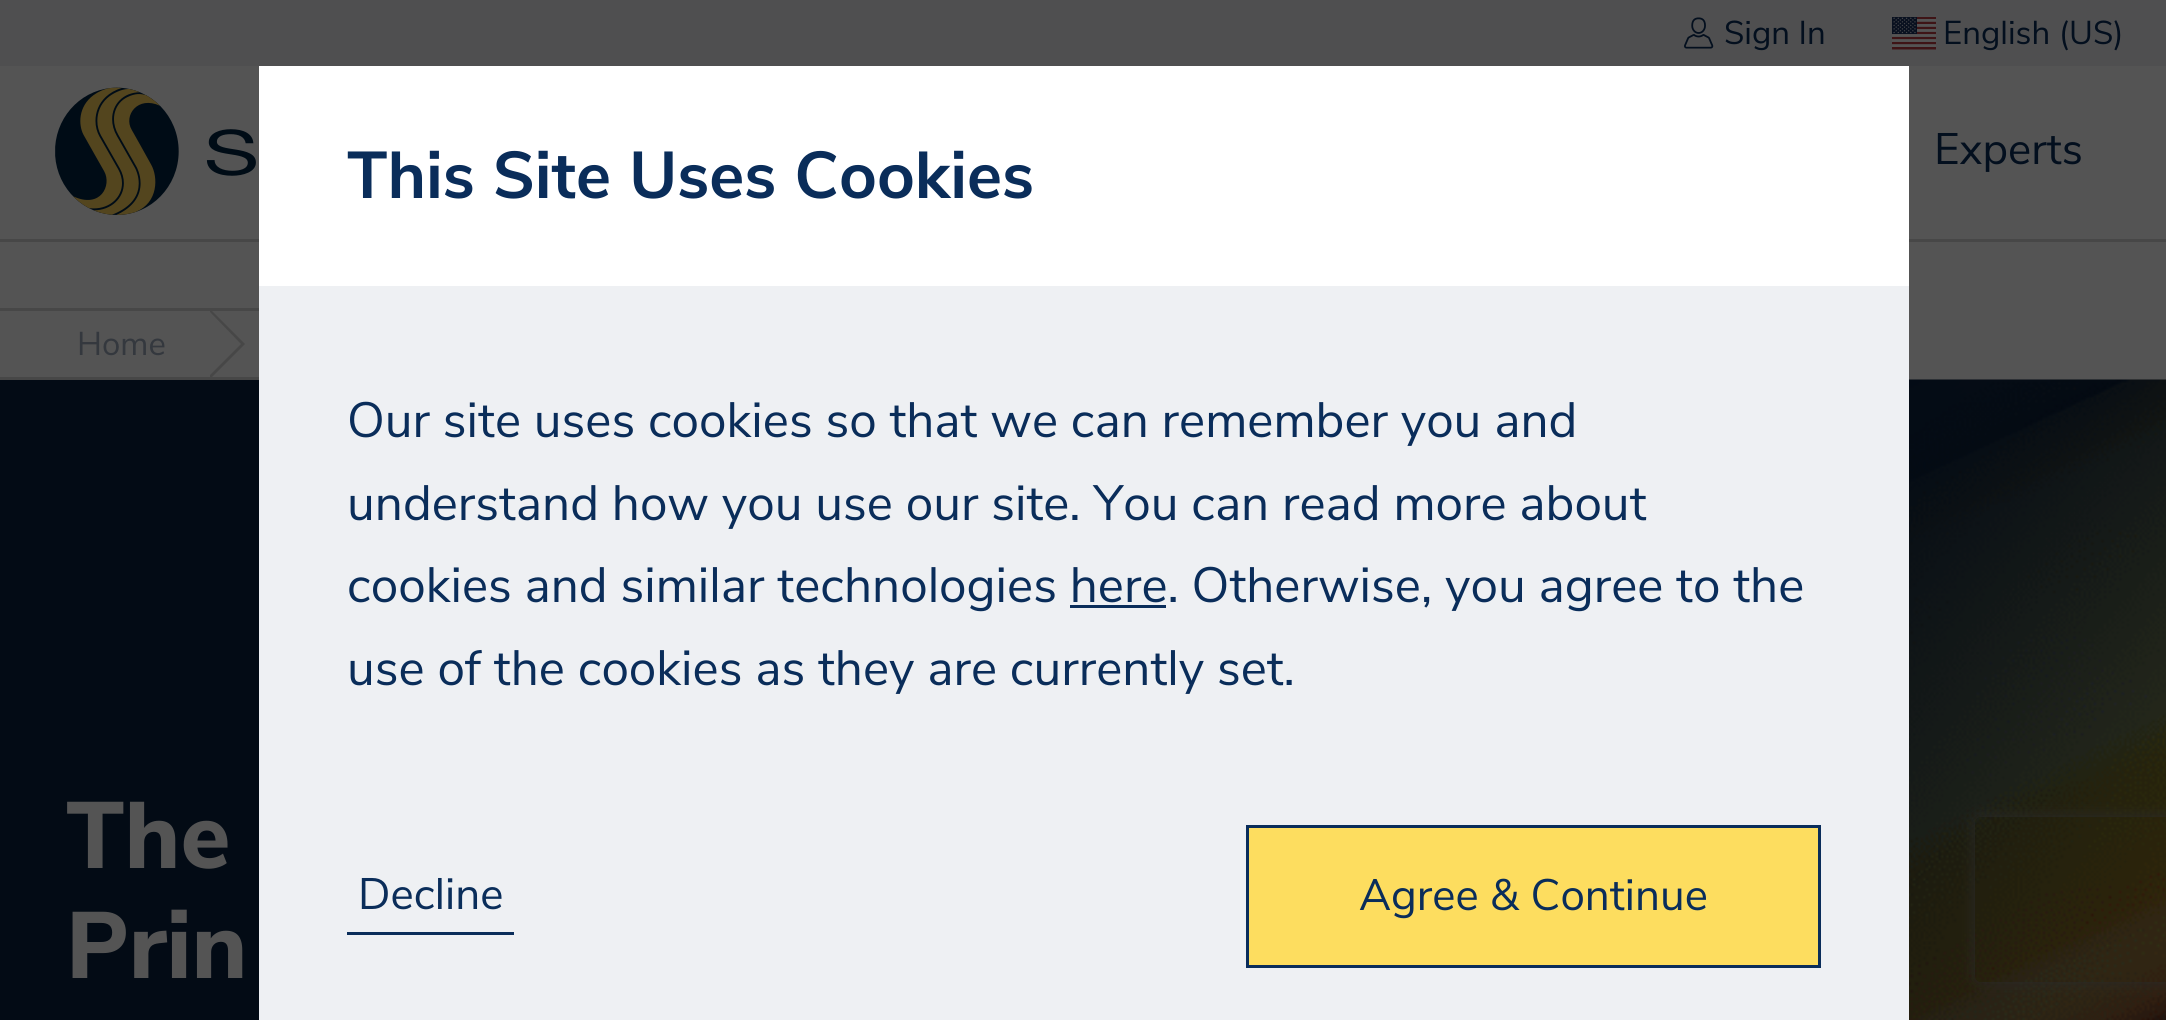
#include <cairo.h>
#include <math.h>
#include <stddef.h>

typedef struct { const char *family; double size; int italic, bold; unsigned color; } style_t;
static cairo_t *ctx;

static void ink(unsigned color) {
    cairo_set_source_rgb(ctx, (color >> 16) / 255.0, (color >> 8 & 255) / 255.0, (color & 255) / 255.0);
}

static void write(double x, double y, const char *s, const style_t *st) {
    cairo_select_font_face(ctx, st->family, st->italic ? CAIRO_FONT_SLANT_ITALIC : CAIRO_FONT_SLANT_NORMAL,
        st->bold ? CAIRO_FONT_WEIGHT_BOLD : CAIRO_FONT_WEIGHT_NORMAL);
    cairo_set_font_size(ctx, st->size);
    ink(st->color);
    cairo_move_to(ctx, x, y);
    cairo_show_text(ctx, s);
}

static void block(double x, double y, double w, double h, unsigned color) {
    ink(color);
    cairo_rectangle(ctx, x, y, w, h);
    cairo_fill(ctx);
}

static void round_path(double x, double y, double w, double h, double r) {
    cairo_new_sub_path(ctx);
    cairo_arc(ctx, x + w - r, y + h - r, r, 0, M_PI / 2);
    cairo_arc(ctx, x + r, y + h - r, r, M_PI / 2, M_PI);
    cairo_arc(ctx, x + r, y + r, r, M_PI, 1.5 * M_PI);
    cairo_arc(ctx, x + w - r, y + r, r, 1.5 * M_PI, 2 * M_PI);
    cairo_close_path(ctx);
}

static void blur_box(double x, double y, double w, double h, double r, double blur, double alpha) {
    cairo_push_group_with_content(ctx, CAIRO_CONTENT_ALPHA);
    cairo_set_operator(ctx, CAIRO_OPERATOR_SOURCE);
    for (int i = 15; i >= -15 && fmin(w, h) + blur * i / 3 > 0; i -= 2) {
        double e = blur * i / 6;
        cairo_set_source_rgba(ctx, 0, 0, 0, alpha * erfc((i - 1) / 8.5) / 2);
        round_path(x - e, y - e, w + 2 * e, h + 2 * e, fmax(0, fmin(r + e + blur * .6, fmin(w, h) / 2 + e)));
        cairo_fill(ctx);
    }
    cairo_pattern_t *soft = cairo_pop_group(ctx);
    cairo_mask(ctx, soft);
    cairo_pattern_destroy(soft);
}

static void paste(const char *path, double x, double y, double w, double h) {
    cairo_surface_t *image = cairo_image_surface_create_from_png(path);
    cairo_save(ctx);
    cairo_set_source_surface(ctx, image, x, y);
    cairo_rectangle(ctx, x, y, w, h);
    cairo_fill(ctx);
    cairo_restore(ctx);
    cairo_surface_destroy(image);
}

static const style_t s1 = {"Nunito Sans", 33, 0, 0, 0x030f1e};
static const style_t s2 = {"Nunito Sans", 44, 0, 0, 0x030f1e};
static const style_t s3 = {"Nunito Sans", 33, 0, 0, 0x34383e};
static const style_t s4 = {"Nunito Sans ExtraBold", 94, 0, 0, 0x545454};
static const style_t s5 = {"Nunito Sans", 66, 0, 1, 0x0a2d5a};
static const style_t s6 = {"Nunito Sans", 49.5, 0, 0, 0x0a2d5a};
static const style_t s7 = {"Nunito Sans", 44, 0, 0, 0x0a2d5a};

int main(void) {
    cairo_surface_t *surface = cairo_image_surface_create(CAIRO_FORMAT_RGB24, 2166, 1020);
    ctx = cairo_create(surface);
    cairo_font_options_t *options = cairo_font_options_create();
    cairo_font_options_set_hint_metrics(options, CAIRO_HINT_METRICS_OFF);
    cairo_font_options_set_hint_style(options, CAIRO_HINT_STYLE_NONE);
    cairo_set_font_options(ctx, options);
    cairo_set_miter_limit(ctx, 4);
    ink(0x545454);
    cairo_paint(ctx);
    block(0, 239, 2166, 3, 0x474747);
    block(0, 0, 2166, 66, 0x4f4f50);
    paste("pic1.png", 1684, 17, 30, 32);
    write(1724, 44, "Sign In", &s1);
    paste("pic2.png", 1892, 17, 44, 33);
    write(1943, 44, "English (US)", &s1);
    paste("pic3.png", 55, 87, 201, 128);
    write(1934, 164, "Experts", &s2);
    block(0, 308, 259, 3, 0x474747);
    paste("pic4.png", 0, 379, 2166, 641);
    block(0, 377, 259, 3, 0x474747);
    cairo_new_path(ctx);
    cairo_move_to(ctx, 210, 309);
    cairo_line_to(ctx, 245, 344);
    cairo_line_to(ctx, 210, 379);
    cairo_close_path(ctx);
    cairo_fill(ctx);
    write(77, 355, "Home", &s3);
    ink(0x545454);
    cairo_new_path(ctx);
    cairo_move_to(ctx, 241, 344);
    cairo_line_to(ctx, 209, 311);
    cairo_line_to(ctx, 209, 376);
    cairo_close_path(ctx);
    cairo_fill(ctx);
    write(66, 868, "The", &s4);
    write(66, 978, "Prin", &s4);
    block(259, 66, 1650, 220, 0xffffff);
    write(347, 198, "This Site Uses Cookies", &s5);
    block(259, 286, 1650, 734, 0xeef0f3);
    write(347, 437, "Our site uses cookies so that we can remember you and", &s6);
    write(347, 520, "understand how you use our site. You can read more about", &s6);
    write(347, 602, "cookies and similar technologies here. Otherwise, you agree to the", &s6);
    block(1070, 605, 96, 3, 0x0a2d5a);
    write(347, 685, "use of the cookies as they are currently set.", &s6);
    write(358, 909, "Decline", &s7);
    block(347, 932, 167, 3, 0x0a2d5a);
    ink(0xfddd5f);
    cairo_rectangle(ctx, 1247.5, 826.5, 572, 140);
    cairo_fill_preserve(ctx);
    ink(0x0a2d5a);
    cairo_set_line_width(ctx, 3);
    cairo_stroke(ctx);
    write(1359, 910, "Agree & Continue", &s7);
    cairo_save(ctx);
    cairo_set_fill_rule(ctx, CAIRO_FILL_RULE_EVEN_ODD);
    cairo_new_path(ctx);
    cairo_move_to(ctx, 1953, 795);
    cairo_line_to(ctx, 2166, 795);
    cairo_line_to(ctx, 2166, 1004);
    cairo_line_to(ctx, 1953, 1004);
    cairo_close_path(ctx);
    cairo_move_to(ctx, 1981, 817);
    cairo_line_to(ctx, 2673, 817);
    cairo_curve_to(ctx, 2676.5, 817, 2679, 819.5, 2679, 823);
    cairo_line_to(ctx, 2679, 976);
    cairo_curve_to(ctx, 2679, 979.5, 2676.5, 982, 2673, 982);
    cairo_line_to(ctx, 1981, 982);
    cairo_curve_to(ctx, 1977.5, 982, 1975, 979.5, 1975, 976);
    cairo_line_to(ctx, 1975, 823);
    cairo_curve_to(ctx, 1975, 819.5, 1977.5, 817, 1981, 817);
    cairo_close_path(ctx);
    cairo_clip(ctx);
    ink(0x2a2a2a);
    blur_box(1975, 817, 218, 165, 6, 7, 1);
    cairo_restore(ctx);
    cairo_surface_write_to_png(surface, "screenshot.png");
    cairo_font_options_destroy(options);
    cairo_destroy(ctx);
    cairo_surface_destroy(surface);
    return 0;
}
